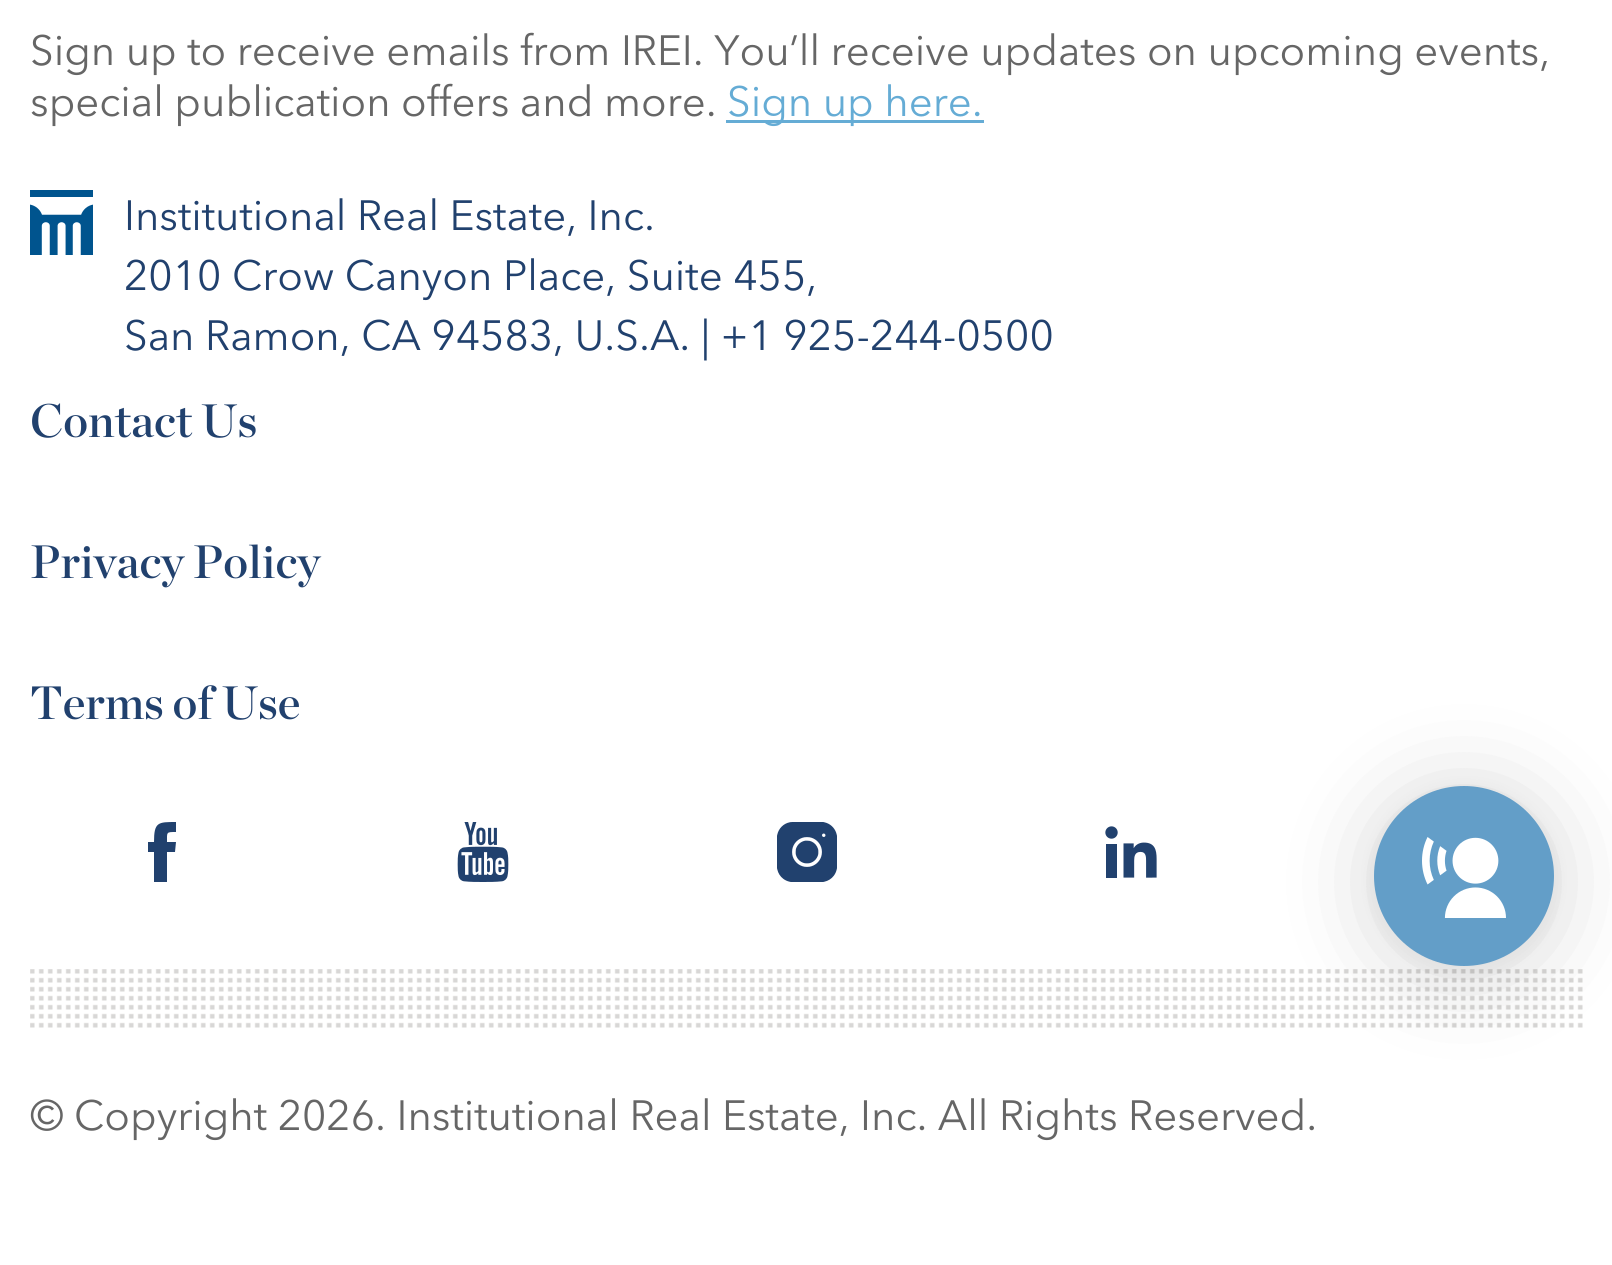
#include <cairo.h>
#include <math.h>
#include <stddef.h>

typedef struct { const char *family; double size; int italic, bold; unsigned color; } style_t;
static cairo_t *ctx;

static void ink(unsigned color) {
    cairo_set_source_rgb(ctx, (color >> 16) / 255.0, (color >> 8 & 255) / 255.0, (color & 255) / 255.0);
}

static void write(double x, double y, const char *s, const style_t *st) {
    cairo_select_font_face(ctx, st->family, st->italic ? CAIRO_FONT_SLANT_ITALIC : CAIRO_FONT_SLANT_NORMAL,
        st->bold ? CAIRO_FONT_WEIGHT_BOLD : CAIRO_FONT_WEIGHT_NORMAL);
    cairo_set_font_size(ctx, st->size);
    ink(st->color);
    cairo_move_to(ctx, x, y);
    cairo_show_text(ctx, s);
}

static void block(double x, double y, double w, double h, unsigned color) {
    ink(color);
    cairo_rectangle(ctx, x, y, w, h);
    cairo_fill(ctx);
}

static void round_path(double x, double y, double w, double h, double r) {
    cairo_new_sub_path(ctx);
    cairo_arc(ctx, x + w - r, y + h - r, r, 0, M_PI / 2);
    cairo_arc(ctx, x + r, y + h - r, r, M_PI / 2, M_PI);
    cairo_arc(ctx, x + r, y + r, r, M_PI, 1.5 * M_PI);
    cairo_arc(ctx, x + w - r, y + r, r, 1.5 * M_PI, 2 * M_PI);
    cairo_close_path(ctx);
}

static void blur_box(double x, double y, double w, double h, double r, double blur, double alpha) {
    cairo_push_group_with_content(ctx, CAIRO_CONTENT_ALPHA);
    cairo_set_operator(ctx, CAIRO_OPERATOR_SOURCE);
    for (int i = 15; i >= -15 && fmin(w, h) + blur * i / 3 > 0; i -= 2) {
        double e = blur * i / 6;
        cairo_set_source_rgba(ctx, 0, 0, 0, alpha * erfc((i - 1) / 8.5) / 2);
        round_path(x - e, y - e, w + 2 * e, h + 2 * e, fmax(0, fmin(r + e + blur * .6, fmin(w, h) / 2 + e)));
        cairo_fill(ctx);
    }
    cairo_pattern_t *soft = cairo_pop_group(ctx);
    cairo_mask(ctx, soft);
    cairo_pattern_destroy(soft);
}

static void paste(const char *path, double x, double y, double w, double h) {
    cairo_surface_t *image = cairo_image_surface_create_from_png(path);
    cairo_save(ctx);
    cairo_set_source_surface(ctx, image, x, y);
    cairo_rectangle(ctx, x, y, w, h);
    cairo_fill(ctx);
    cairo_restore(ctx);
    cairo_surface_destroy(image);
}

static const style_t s1 = {"Avenir Next", 42, 0, 0, 0x666666};
static const style_t s2 = {"Avenir Next", 42, 0, 0, 0x65acd5};
static const style_t s3 = {"Avenir Next", 42, 0, 0, 0x21416e};
static const style_t s4 = {"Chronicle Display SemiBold", 46.75, 0, 0, 0x21416e};

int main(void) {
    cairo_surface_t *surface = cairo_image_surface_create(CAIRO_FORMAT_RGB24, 1612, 1265);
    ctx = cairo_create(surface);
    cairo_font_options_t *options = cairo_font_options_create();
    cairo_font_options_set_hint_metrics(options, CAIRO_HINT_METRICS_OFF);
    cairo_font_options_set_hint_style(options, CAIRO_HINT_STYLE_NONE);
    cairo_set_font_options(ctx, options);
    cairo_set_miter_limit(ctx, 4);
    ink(0xffffff);
    cairo_paint(ctx);
    write(30, 65, "Sign up to receive emails from IREI. You’ll receive updates on upcoming events,", &s1);
    write(30, 116, "special publication offers and more.", &s1);
    block(726, 120, 258, 3, 0x65acd5);
    write(727, 116, "Sign up here.", &s2);
    ink(0x21416e);
    cairo_new_path(ctx);
    cairo_move_to(ctx, 167, 842);
    cairo_curve_to(ctx, 167, 832, 166, 832, 176, 832);
    cairo_line_to(ctx, 176, 822);
    cairo_curve_to(ctx, 158, 822, 154, 822, 154, 842);
    cairo_line_to(ctx, 148, 842);
    cairo_line_to(ctx, 148, 852);
    cairo_line_to(ctx, 154, 852);
    cairo_line_to(ctx, 154, 882);
    cairo_line_to(ctx, 167, 882);
    cairo_line_to(ctx, 167, 852);
    cairo_line_to(ctx, 175, 852);
    cairo_line_to(ctx, 176, 842);
    cairo_close_path(ctx);
    cairo_fill(ctx);
    paste("pic1.png", 457, 822, 52, 60);
    paste("pic2.png", 777, 822, 60, 60);
    paste("pic3.png", 1105, 826, 52, 52);
    paste("pic4.png", 30, 190, 63, 65);
    write(124, 230, "Institutional Real Estate, Inc.", &s3);
    write(124, 290, "2010 Crow Canyon Place, Suite 455,", &s3);
    write(124, 350, "San Ramon, CA 94583, U.S.A. | +1 925-244-0500", &s3);
    write(30, 437, "Contact Us", &s4);
    write(30, 578, "Privacy Policy", &s4);
    write(30, 719, "Terms of Use", &s4);
    paste("pic5.png", 30, 969, 1553, 59);
    write(30, 1130, "© Copyright 2026. Institutional Real Estate, Inc. All Rights Reserved.", &s1);
    ink(0x000000);
    blur_box(1374, 792, 180, 180, 90, 48, 0.16);
    blur_box(1374, 789, 180, 180, 90, 9, 0.06);
    ink(0x639ec8);
    cairo_arc(ctx, 1464, 876, 90, 0, 2 * M_PI);
    cairo_fill(ctx);
    paste("pic6.png", 1422, 837, 84, 81);
    cairo_surface_write_to_png(surface, "screenshot.png");
    cairo_font_options_destroy(options);
    cairo_destroy(ctx);
    cairo_surface_destroy(surface);
    return 0;
}
